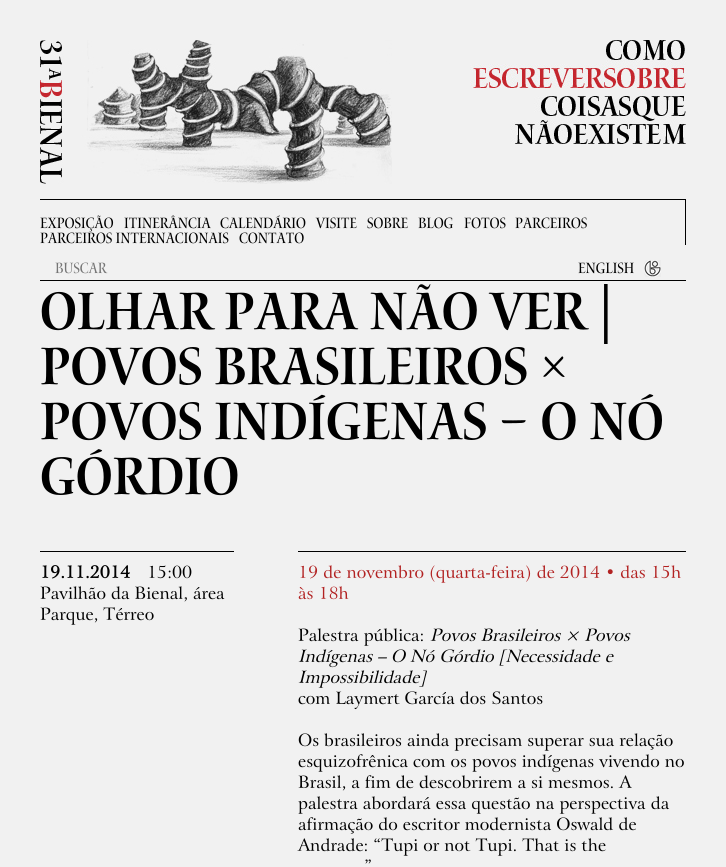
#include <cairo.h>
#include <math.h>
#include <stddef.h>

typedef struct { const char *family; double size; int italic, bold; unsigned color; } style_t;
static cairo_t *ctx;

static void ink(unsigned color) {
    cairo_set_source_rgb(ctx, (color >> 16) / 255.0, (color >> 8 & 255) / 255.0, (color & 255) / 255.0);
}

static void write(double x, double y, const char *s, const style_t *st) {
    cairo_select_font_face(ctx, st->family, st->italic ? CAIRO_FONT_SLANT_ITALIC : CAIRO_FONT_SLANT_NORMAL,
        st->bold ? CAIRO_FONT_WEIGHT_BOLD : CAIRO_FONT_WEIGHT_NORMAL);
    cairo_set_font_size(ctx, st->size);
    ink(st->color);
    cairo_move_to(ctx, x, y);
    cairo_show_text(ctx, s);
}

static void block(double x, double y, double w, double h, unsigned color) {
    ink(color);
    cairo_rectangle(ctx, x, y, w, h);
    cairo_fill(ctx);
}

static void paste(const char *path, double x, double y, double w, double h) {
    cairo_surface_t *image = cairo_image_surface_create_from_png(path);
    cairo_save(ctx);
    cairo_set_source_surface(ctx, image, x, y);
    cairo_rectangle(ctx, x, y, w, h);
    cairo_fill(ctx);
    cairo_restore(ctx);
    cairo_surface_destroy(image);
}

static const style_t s1 = {"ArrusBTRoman", 17, 0, 1, 0x000000};
static const style_t s2 = {"ArrusBTRoman", 17, 0, 0, 0x000000};
static const style_t s3 = {"ArrusBTRoman", 17, 0, 0, 0xb22222};
static const style_t s4 = {"ArrusBTRoman", 17, 1, 0, 0x000000};

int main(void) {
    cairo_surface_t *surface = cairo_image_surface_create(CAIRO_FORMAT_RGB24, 726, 867);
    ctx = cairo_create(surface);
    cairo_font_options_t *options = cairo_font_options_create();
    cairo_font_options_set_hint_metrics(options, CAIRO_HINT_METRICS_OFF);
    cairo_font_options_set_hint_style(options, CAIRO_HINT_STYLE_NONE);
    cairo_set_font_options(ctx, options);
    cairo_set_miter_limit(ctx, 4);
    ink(0xf1f1f1);
    cairo_paint(ctx);
    paste("pic1.png", 40, 40, 352, 144);
    paste("pic2.png", 470, 40, 216, 104);
    block(40, 199, 646, 1, 0x000000);
    block(685, 200, 1, 45, 0x000000);
    paste("pic3.png", 40, 215, 74, 17);
    paste("pic4.png", 124, 215, 87, 14);
    paste("pic5.png", 220, 215, 86, 14);
    paste("pic6.png", 315, 217, 42, 12);
    paste("pic7.png", 367, 217, 41, 12);
    paste("pic8.png", 418, 217, 35, 12);
    paste("pic9.png", 464, 217, 42, 12);
    paste("pic10.png", 515, 217, 72, 12);
    paste("pic11.png", 40, 232, 189, 12);
    paste("pic12.png", 239, 232, 65, 12);
    paste("pic13.png", 55, 262, 53, 12);
    paste("pic14.png", 578, 262, 56, 12);
    paste("pic15.png", 644, 260, 17, 17);
    block(40, 280, 646, 1, 0x000000);
    paste("pic16.png", 41, 284, 567, 60);
    paste("pic17.png", 41, 346, 524, 40);
    paste("pic18.png", 41, 394, 621, 47);
    paste("pic19.png", 41, 449, 197, 47);
    block(40, 551, 194, 1, 0x000000);
    write(40, 578, "19.11.2014", &s1);
    write(147, 578, "15:00", &s2);
    write(40, 599, "Pavilhão da Bienal, área", &s2);
    write(40, 620, "Parque, Térreo", &s2);
    block(298, 551, 388, 1, 0x000000);
    write(298, 578, "19 de novembro (quarta-feira) de 2014 • das 15h", &s3);
    write(298, 599, "às 18h", &s3);
    write(298, 641, "Palestra pública:", &s2);
    write(430, 641, "Povos Brasileiros × Povos", &s4);
    write(298, 662, "Indígenas – O Nó Górdio [Necessidade e", &s4);
    write(298, 683, "Impossibilidade]", &s4);
    write(298, 704, "com Laymert García dos Santos", &s2);
    write(298, 746, "Os brasileiros ainda precisam superar sua relação", &s2);
    write(298, 767, "esquizofrênica com os povos indígenas vivendo no", &s2);
    write(298, 788, "Brasil, a fim de descobrirem a si mesmos. A", &s2);
    write(298, 809, "palestra abordará essa questão na perspectiva da", &s2);
    write(298, 830, "afirmação do escritor modernista Oswald de", &s2);
    write(298, 851, "Andrade: “Tupi or not Tupi. That is the", &s2);
    write(364, 872, "”", &s2);
    cairo_surface_write_to_png(surface, "screenshot.png");
    cairo_font_options_destroy(options);
    cairo_destroy(ctx);
    cairo_surface_destroy(surface);
    return 0;
}
